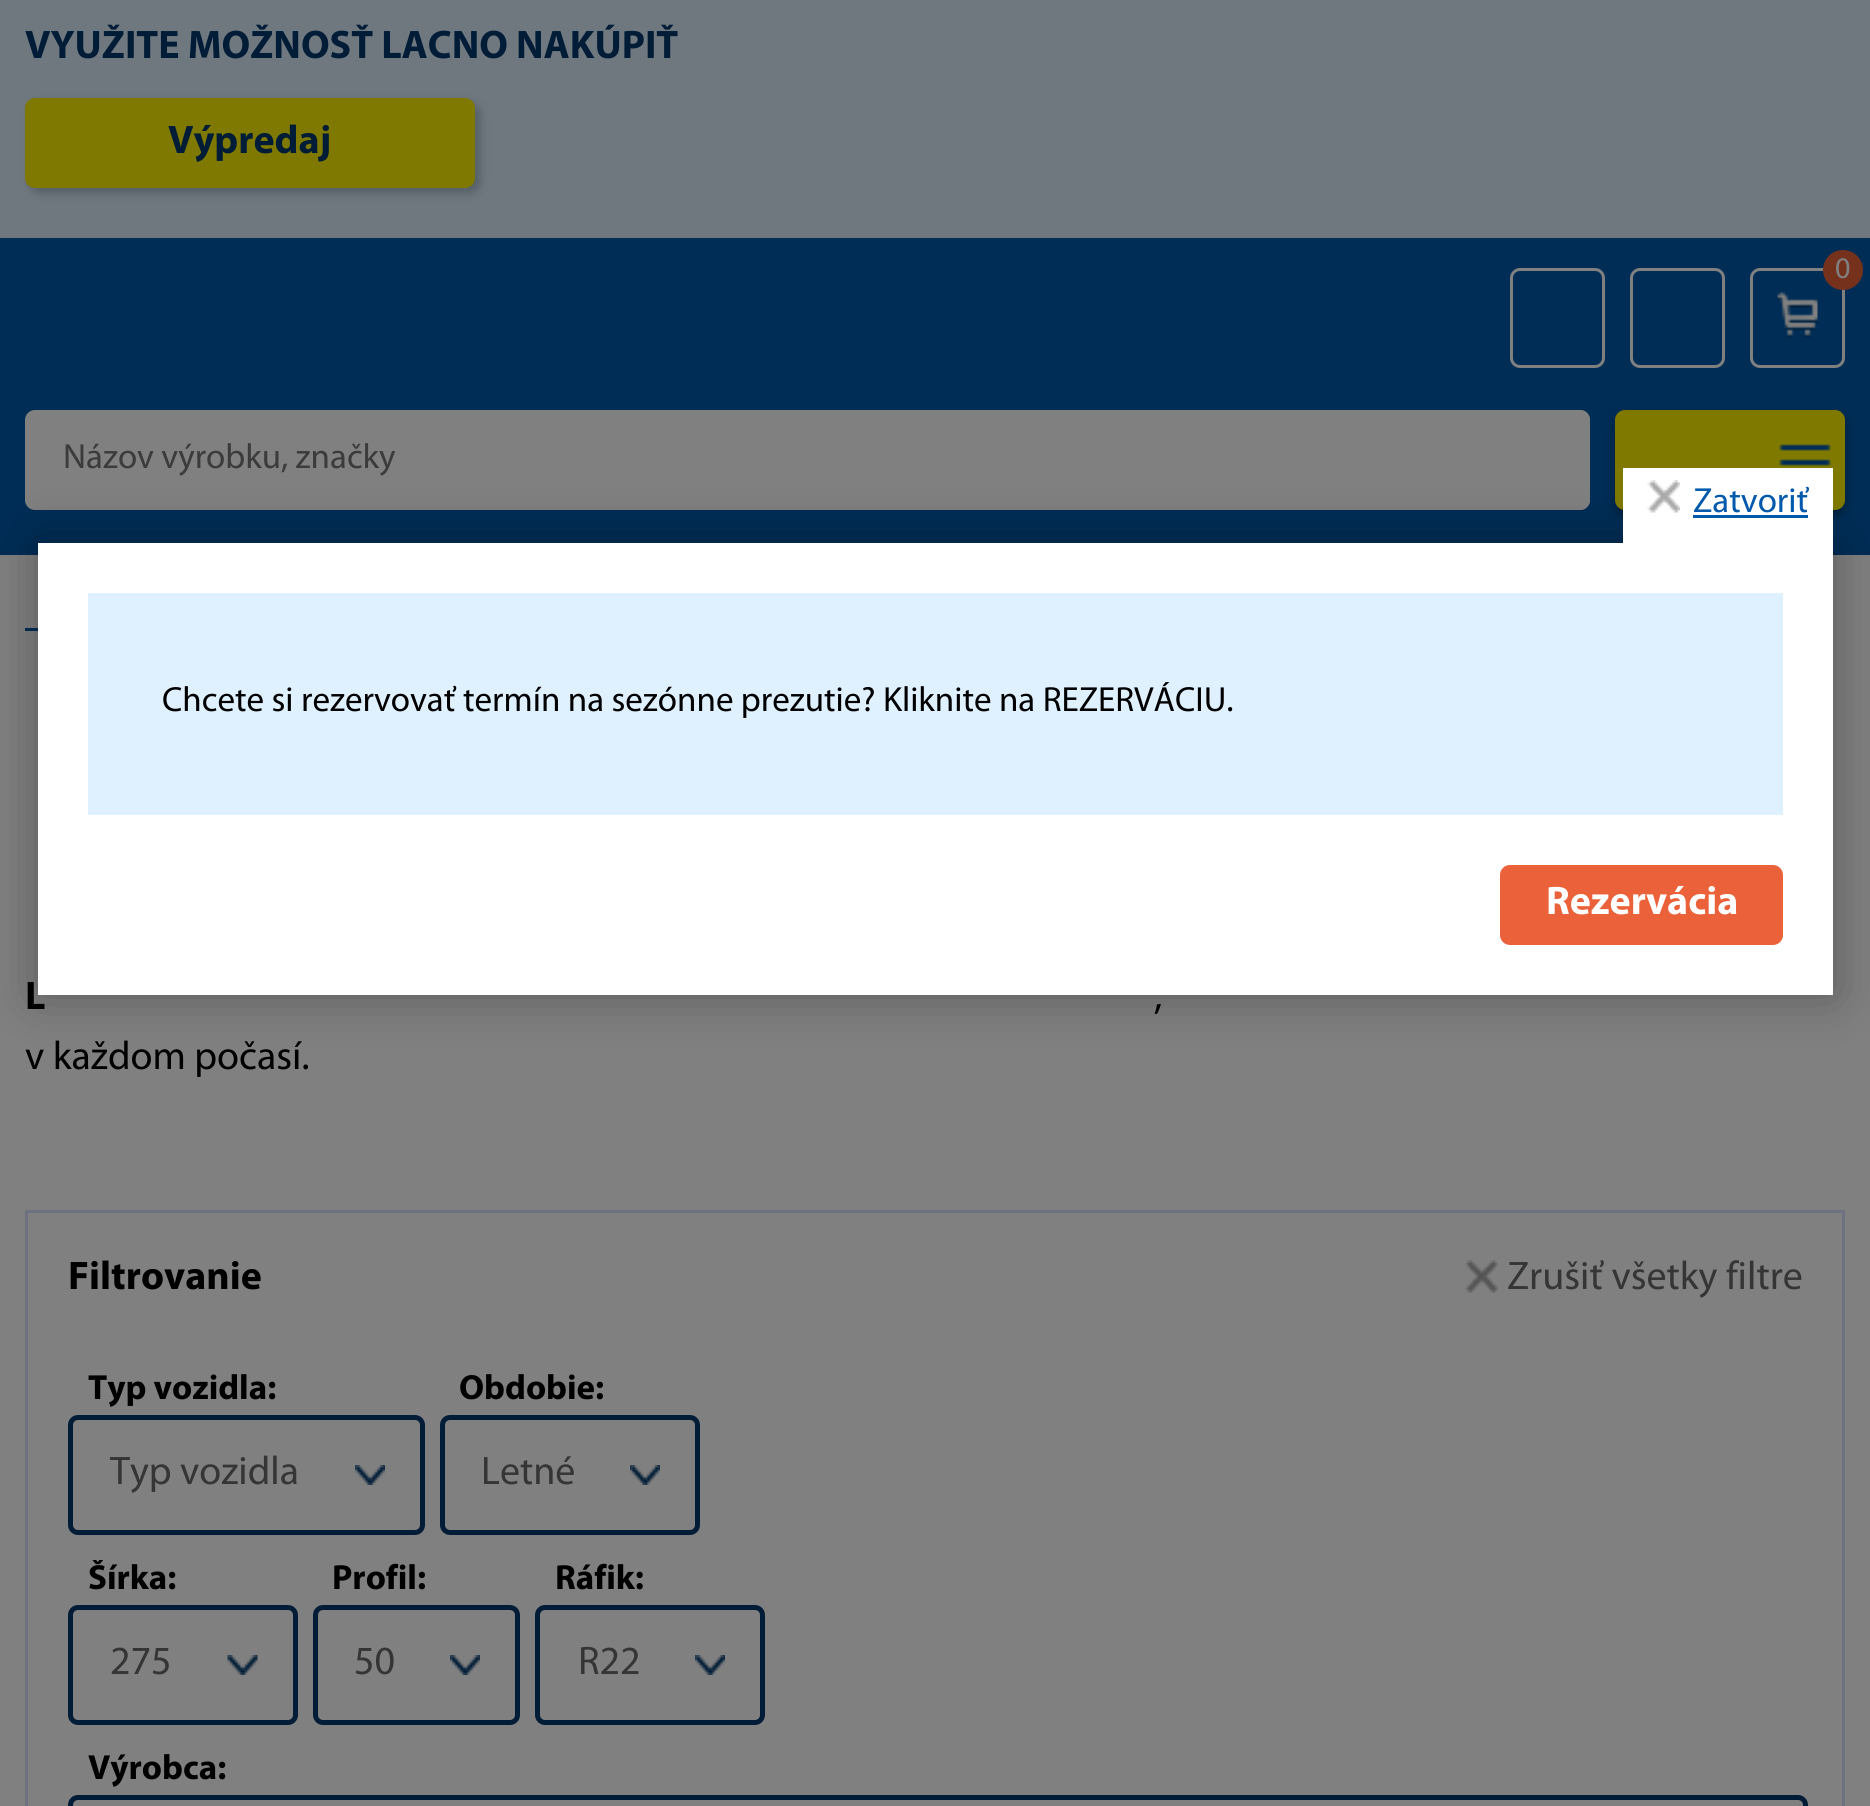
#include <cairo.h>
#include <math.h>
#include <stddef.h>

typedef struct { const char *family; double size; int italic, bold; unsigned color; } style_t;
static cairo_t *ctx;

static void ink(unsigned color) {
    cairo_set_source_rgb(ctx, (color >> 16) / 255.0, (color >> 8 & 255) / 255.0, (color & 255) / 255.0);
}

static void write(double x, double y, const char *s, const style_t *st) {
    cairo_select_font_face(ctx, st->family, st->italic ? CAIRO_FONT_SLANT_ITALIC : CAIRO_FONT_SLANT_NORMAL,
        st->bold ? CAIRO_FONT_WEIGHT_BOLD : CAIRO_FONT_WEIGHT_NORMAL);
    cairo_set_font_size(ctx, st->size);
    ink(st->color);
    cairo_move_to(ctx, x, y);
    cairo_show_text(ctx, s);
}

static void block(double x, double y, double w, double h, unsigned color) {
    ink(color);
    cairo_rectangle(ctx, x, y, w, h);
    cairo_fill(ctx);
}

static void round_path(double x, double y, double w, double h, double r) {
    cairo_new_sub_path(ctx);
    cairo_arc(ctx, x + w - r, y + h - r, r, 0, M_PI / 2);
    cairo_arc(ctx, x + r, y + h - r, r, M_PI / 2, M_PI);
    cairo_arc(ctx, x + r, y + r, r, M_PI, 1.5 * M_PI);
    cairo_arc(ctx, x + w - r, y + r, r, 1.5 * M_PI, 2 * M_PI);
    cairo_close_path(ctx);
}

static void blur_box(double x, double y, double w, double h, double r, double blur, double alpha) {
    cairo_push_group_with_content(ctx, CAIRO_CONTENT_ALPHA);
    cairo_set_operator(ctx, CAIRO_OPERATOR_SOURCE);
    for (int i = 15; i >= -15 && fmin(w, h) + blur * i / 3 > 0; i -= 2) {
        double e = blur * i / 6;
        cairo_set_source_rgba(ctx, 0, 0, 0, alpha * erfc((i - 1) / 8.5) / 2);
        round_path(x - e, y - e, w + 2 * e, h + 2 * e, fmax(0, fmin(r + e + blur * .6, fmin(w, h) / 2 + e)));
        cairo_fill(ctx);
    }
    cairo_pattern_t *soft = cairo_pop_group(ctx);
    cairo_mask(ctx, soft);
    cairo_pattern_destroy(soft);
}

static void paste(const char *path, double x, double y, double w, double h) {
    cairo_surface_t *image = cairo_image_surface_create_from_png(path);
    cairo_save(ctx);
    cairo_set_source_surface(ctx, image, x, y);
    cairo_rectangle(ctx, x, y, w, h);
    cairo_fill(ctx);
    cairo_restore(ctx);
    cairo_surface_destroy(image);
}

static const style_t s1 = {"Myriad", 40, 0, 1, 0x001c36};
static const style_t s2 = {"Myriad", 30, 0, 0, 0x808080};
static const style_t s3 = {"Myriad", 35, 0, 0, 0x3b3b3b};
static const style_t s4 = {"Myriad", 40, 0, 1, 0x000000};
static const style_t s5 = {"Myriad", 35, 0, 0, 0x0059ab};
static const style_t s6 = {"Myriad", 35, 0, 0, 0x000000};
static const style_t s7 = {"Myriad", 40, 0, 1, 0xffffff};
static const style_t s8 = {"Myriad", 40, 0, 0, 0x000000};
static const style_t s9 = {"Myriad", 40, 0, 0, 0x353535};
static const style_t s10 = {"Myriad", 35, 0, 1, 0x000000};

int main(void) {
    cairo_surface_t *surface = cairo_image_surface_create(CAIRO_FORMAT_RGB24, 1870, 1806);
    ctx = cairo_create(surface);
    cairo_font_options_t *options = cairo_font_options_create();
    cairo_font_options_set_hint_metrics(options, CAIRO_HINT_METRICS_OFF);
    cairo_font_options_set_hint_style(options, CAIRO_HINT_STYLE_NONE);
    cairo_set_font_options(ctx, options);
    cairo_set_miter_limit(ctx, 4);
    ink(0x808080);
    cairo_paint(ctx);
    block(0, 0, 1870, 238, 0x70787f);
    write(25, 58, "VYUŽITE MOŽNOSŤ LACNO NAKÚPIŤ", &s1);
    ink(0x535d66);
    blur_box(30, 103, 450, 90, 10, 5, 1);
    ink(0x7f7901);
    round_path(25, 98, 450, 90, 10);
    cairo_fill(ctx);
    write(168, 153, "Výpredaj", &s1);
    block(0, 238, 1870, 317, 0x002d56);
    round_path(1511.5, 269.5, 92, 97, 8.5);
    ink(0x808080);
    cairo_set_line_width(ctx, 3);
    cairo_stroke(ctx);
    round_path(1631.5, 269.5, 92, 97, 8.5);
    cairo_stroke(ctx);
    round_path(1751.5, 269.5, 92, 97, 8.5);
    cairo_stroke(ctx);
    ink(0x76311d);
    cairo_arc(ctx, 1843, 270, 20, 0, 2 * M_PI);
    cairo_fill(ctx);
    write(1835, 278, "0", &s2);
    paste("pic1.png", 1777, 292, 41, 46);
    round_path(25, 410, 1565, 100, 10);
    cairo_fill(ctx);
    write(63, 468, "Názov výrobku, značky", &s3);
    ink(0x808080);
    round_path(1395, 410, 195, 100, 10);
    cairo_fill(ctx);
    ink(0x001c34);
    blur_box(1615, 415, 230, 100, 10, 5, 1);
    ink(0x7f7900);
    round_path(1615, 410, 230, 100, 10);
    cairo_fill(ctx);
    paste("pic2.png", 1779, 444, 52, 22);
    block(25, 628, 13, 3, 0x002d56);
    ink(0x000000);
    blur_box(38, 543, 1795, 452, 0, 25, 0.3);
    write(25, 1009, "L", &s4);
    block(38, 543, 1795, 452, 0xffffff);
    block(1623, 468, 210, 75, 0xffffff);
    paste("pic3.png", 1647, 480, 33, 33);
    write(1693, 512, "Zatvoriť", &s5);
    block(1693, 515, 115, 3, 0x0059ab);
    block(88, 593, 1695, 222, 0xdff0ff);
    write(162, 711, "Chcete si rezervovať termín na sezónne prezutie? Kliknite na REZERVÁCIU.", &s6);
    ink(0xeb6139);
    round_path(1500, 865, 283, 80, 10);
    cairo_fill(ctx);
    write(1546, 914, "Rezervácia", &s7);
    write(1154, 1009, ",", &s8);
    write(25, 1069, "v každom počasí.", &s8);
    cairo_rectangle(ctx, 26.5, 1211.5, 1817, 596);
    ink(0x6e717f);
    cairo_stroke(ctx);
    write(68, 1289, "Filtrovanie", &s4);
    paste("pic4.png", 1465, 1260, 33, 33);
    write(1507, 1289, "Zrušiť všetky filtre", &s9);
    write(88, 1399, "Typ vozidla:", &s10);
    round_path(70.5, 1417.5, 352, 115, 7.5);
    ink(0x001c36);
    cairo_set_line_width(ctx, 5);
    cairo_stroke(ctx);
    write(110, 1484, "Typ vozidla", &s9);
    paste("pic5.png", 355, 1465, 30, 20);
    write(459, 1399, "Obdobie:", &s10);
    round_path(442.5, 1417.5, 255, 115, 7.5);
    ink(0x001c36);
    cairo_stroke(ctx);
    write(481, 1484, "Letné", &s9);
    paste("pic5.png", 630, 1465, 30, 20);
    cairo_save(ctx);
    cairo_rectangle(ctx, 88, 1560, 200, 45);
    cairo_clip(ctx);
    write(88, 1589, "Šírka:", &s10);
    cairo_restore(ctx);
    round_path(70.5, 1607.5, 225, 115, 7.5);
    ink(0x001c36);
    cairo_stroke(ctx);
    write(110, 1674, "275", &s9);
    paste("pic6.png", 227, 1655, 31, 20);
    write(332, 1589, "Profil:", &s10);
    round_path(315.5, 1607.5, 202, 115, 7.5);
    ink(0x001c36);
    cairo_stroke(ctx);
    write(354, 1674, "50", &s9);
    paste("pic7.png", 450, 1655, 30, 20);
    write(555, 1589, "Ráfik:", &s10);
    round_path(537.5, 1607.5, 225, 115, 7.5);
    ink(0x001c36);
    cairo_stroke(ctx);
    write(578, 1674, "R22", &s9);
    paste("pic7.png", 695, 1655, 30, 20);
    write(88, 1779, "Výrobca:", &s10);
    round_path(70.5, 1797.5, 1735, 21, 7.5);
    ink(0x001c36);
    cairo_stroke(ctx);
    cairo_surface_write_to_png(surface, "screenshot.png");
    cairo_font_options_destroy(options);
    cairo_destroy(ctx);
    cairo_surface_destroy(surface);
    return 0;
}
